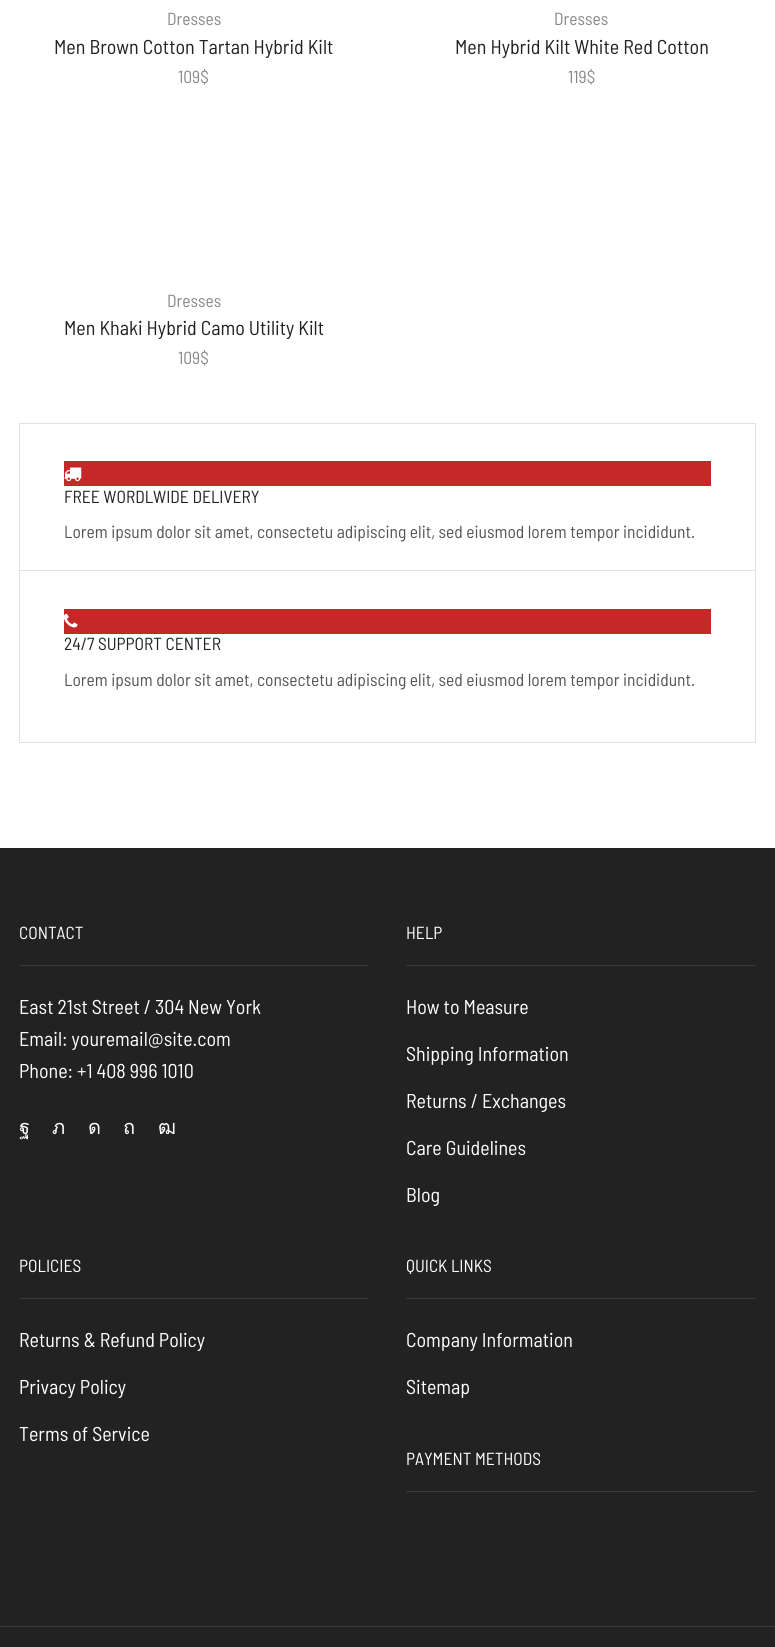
#include <cairo.h>
#include <math.h>
#include <stddef.h>

typedef struct { const char *family; double size; int italic, bold; unsigned color; } style_t;
static cairo_t *ctx;

static void ink(unsigned color) {
    cairo_set_source_rgb(ctx, (color >> 16) / 255.0, (color >> 8 & 255) / 255.0, (color & 255) / 255.0);
}

static void write(double x, double y, const char *s, const style_t *st) {
    cairo_select_font_face(ctx, st->family, st->italic ? CAIRO_FONT_SLANT_ITALIC : CAIRO_FONT_SLANT_NORMAL,
        st->bold ? CAIRO_FONT_WEIGHT_BOLD : CAIRO_FONT_WEIGHT_NORMAL);
    cairo_set_font_size(ctx, st->size);
    ink(st->color);
    cairo_move_to(ctx, x, y);
    cairo_show_text(ctx, s);
}

static void block(double x, double y, double w, double h, unsigned color) {
    ink(color);
    cairo_rectangle(ctx, x, y, w, h);
    cairo_fill(ctx);
}

static void paste(const char *path, double x, double y, double w, double h) {
    cairo_surface_t *image = cairo_image_surface_create_from_png(path);
    cairo_save(ctx);
    cairo_set_source_surface(ctx, image, x, y);
    cairo_rectangle(ctx, x, y, w, h);
    cairo_fill(ctx);
    cairo_restore(ctx);
    cairo_surface_destroy(image);
}

static const style_t s1 = {"Barlow Semi Condensed", 17.5, 0, 0, 0x888888};
static const style_t s2 = {"Barlow Semi Condensed", 20, 0, 0, 0x222222};
static const style_t s3 = {"Barlow Semi Condensed", 17.5, 0, 0, 0x222222};
static const style_t s4 = {"Barlow Semi Condensed", 17.5, 0, 0, 0x555555};
static const style_t s5 = {"Barlow Semi Condensed", 17.5, 0, 0, 0xffffff};
static const style_t s6 = {"Barlow Semi Condensed", 20, 0, 0, 0xffffff};
static const style_t s7 = {"Loma", 20, 0, 0, 0xffffff};

int main(void) {
    cairo_surface_t *surface = cairo_image_surface_create(CAIRO_FORMAT_RGB24, 775, 1647);
    ctx = cairo_create(surface);
    cairo_font_options_t *options = cairo_font_options_create();
    cairo_font_options_set_hint_metrics(options, CAIRO_HINT_METRICS_OFF);
    cairo_font_options_set_hint_style(options, CAIRO_HINT_STYLE_NONE);
    cairo_set_font_options(ctx, options);
    cairo_set_miter_limit(ctx, 4);
    ink(0xffffff);
    cairo_paint(ctx);
    write(167, 25, "Dresses", &s1);
    write(54, 54, "Men Brown Cotton Tartan Hybrid Kilt", &s2);
    write(178, 83, "109$", &s1);
    write(554, 25, "Dresses", &s1);
    write(455, 54, "Men Hybrid Kilt White Red Cotton", &s2);
    write(568, 83, "119$", &s1);
    write(167, 307, "Dresses", &s1);
    write(64, 335, "Men Khaki Hybrid Camo Utility Kilt", &s2);
    write(178, 364, "109$", &s1);
    cairo_rectangle(ctx, 19.5, 423.5, 736, 171);
    ink(0xe1e1e1);
    cairo_set_line_width(ctx, 1);
    cairo_stroke(ctx);
    block(64, 461, 647, 25, 0xc62828);
    paste("pic1.png", 64, 467, 18, 15);
    write(64, 503, "FREE WORDLWIDE DELIVERY", &s3);
    write(64, 538, "Lorem ipsum dolor sit amet, consectetu adipiscing elit, sed eiusmod lorem tempor incididunt.", &s4);
    block(20, 594, 735, 1, 0xffffff);
    cairo_rectangle(ctx, 19.5, 570.5, 736, 172);
    ink(0xe1e1e1);
    cairo_stroke(ctx);
    block(64, 609, 647, 25, 0xc62828);
    paste("pic2.png", 64, 613, 14, 15);
    write(64, 650, "24/7 SUPPORT CENTER", &s3);
    write(64, 686, "Lorem ipsum dolor sit amet, consectetu adipiscing elit, sed eiusmod lorem tempor incididunt.", &s4);
    block(0, 848, 775, 799, 0x222222);
    block(19, 965, 350, 1, 0x393939);
    write(19, 939, "CONTACT", &s5);
    write(19, 1014, "East 21st Street / 304 New York", &s6);
    write(19, 1046, "Email: youremail@site.com", &s6);
    write(19, 1078, "Phone: +1 408 996 1010", &s6);
    write(19, 1134, "ฐ", &s7);
    write(52, 1134, "ภ", &s7);
    write(88, 1134, "ด", &s7);
    write(123, 1134, "ถ", &s7);
    write(158, 1134, "ฒ", &s7);
    block(406, 965, 350, 1, 0x393939);
    write(406, 939, "HELP", &s5);
    write(406, 1014, "How to Measure", &s6);
    write(406, 1061, "Shipping Information", &s6);
    write(406, 1108, "Returns / Exchanges", &s6);
    write(406, 1155, "Care Guidelines", &s6);
    write(406, 1202, "Blog", &s6);
    block(19, 1298, 350, 1, 0x393939);
    write(19, 1272, "POLICIES", &s5);
    write(19, 1347, "Returns & Refund Policy", &s6);
    write(19, 1394, "Privacy Policy", &s6);
    write(19, 1441, "Terms of Service", &s6);
    block(406, 1298, 350, 1, 0x393939);
    write(406, 1272, "QUICK LINKS", &s5);
    write(406, 1347, "Company Information", &s6);
    write(406, 1394, "Sitemap", &s6);
    block(406, 1491, 350, 1, 0x393939);
    write(406, 1465, "PAYMENT METHODS", &s5);
    block(0, 1626, 775, 1, 0x393939);
    cairo_surface_write_to_png(surface, "screenshot.png");
    cairo_font_options_destroy(options);
    cairo_destroy(ctx);
    cairo_surface_destroy(surface);
    return 0;
}
